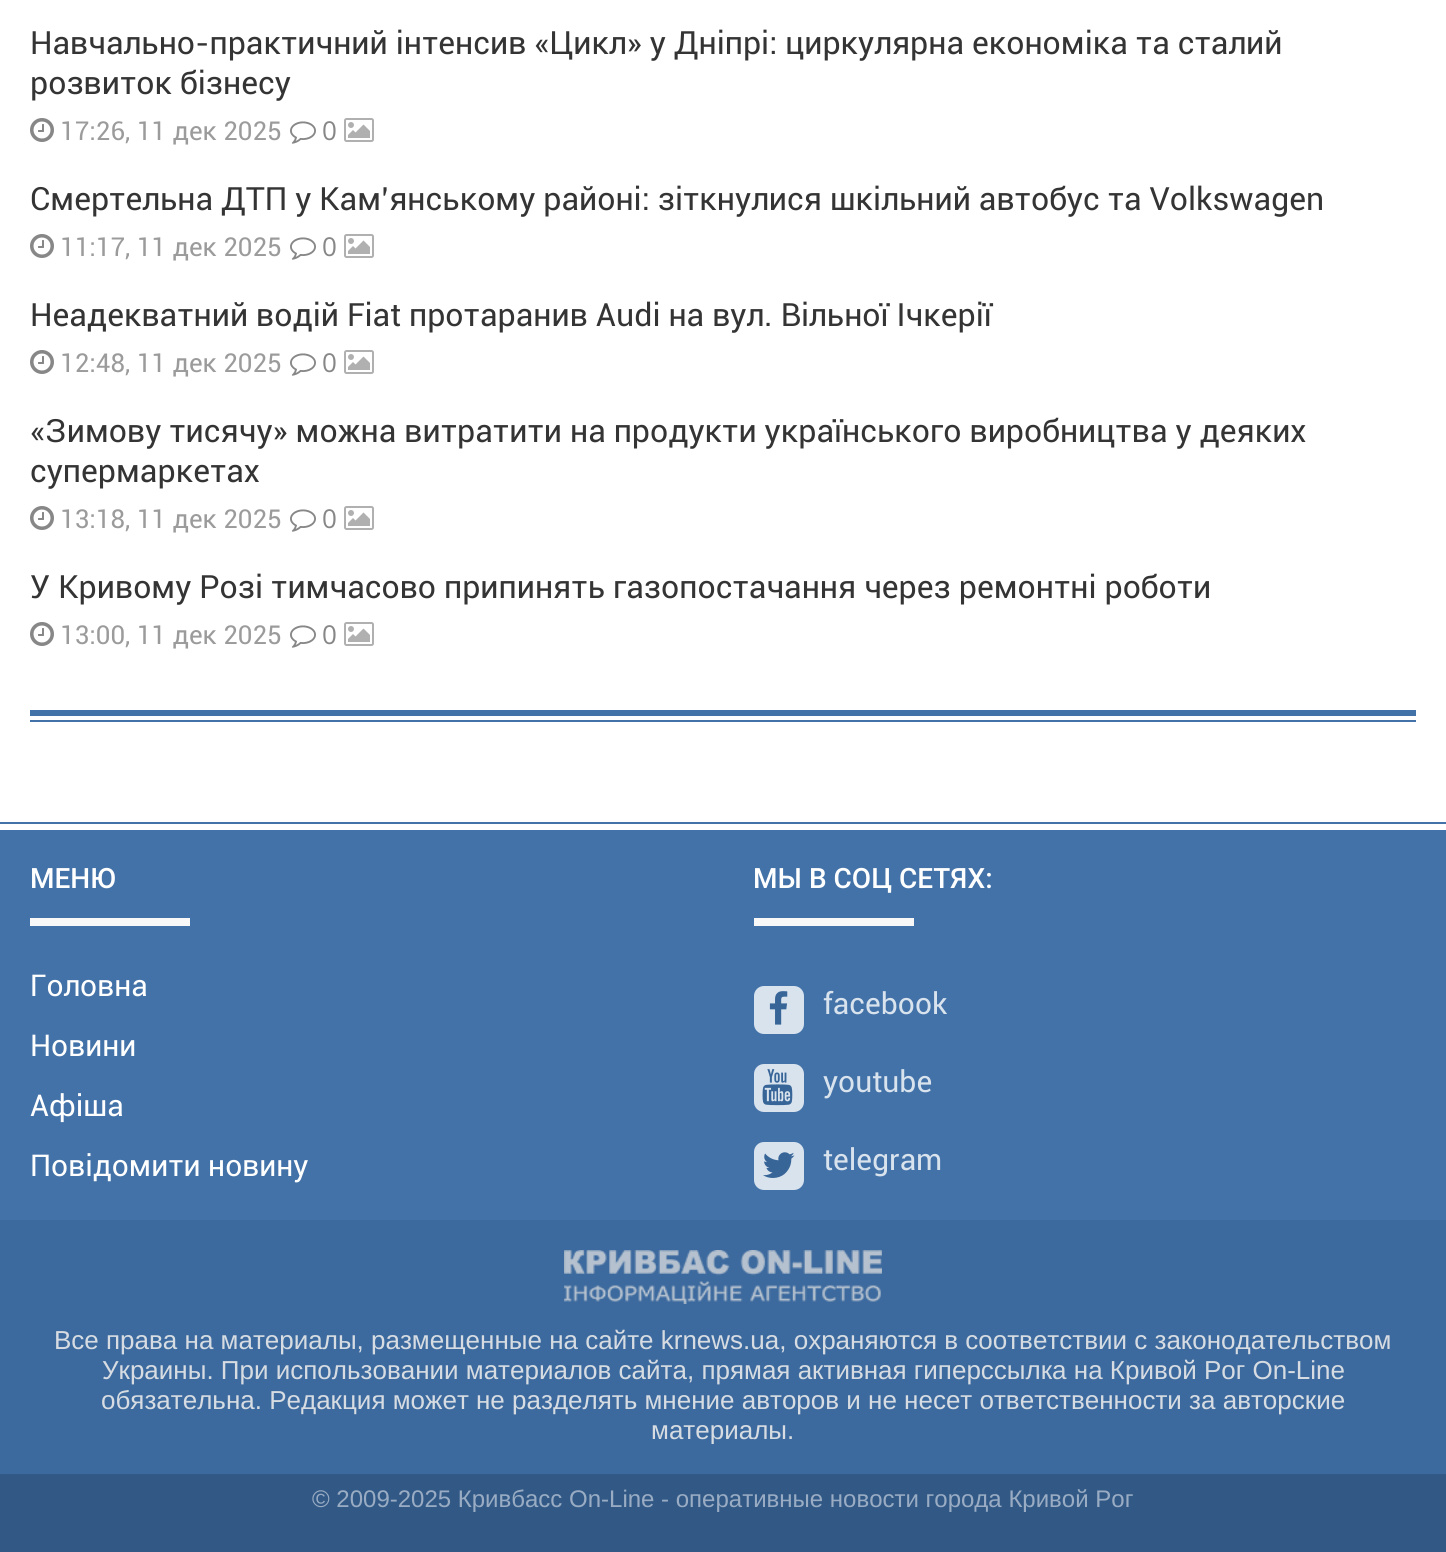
#include <cairo.h>
#include <math.h>
#include <stddef.h>

typedef struct { const char *family; double size; int italic, bold; unsigned color; } style_t;
static cairo_t *ctx;

static void ink(unsigned color) {
    cairo_set_source_rgb(ctx, (color >> 16) / 255.0, (color >> 8 & 255) / 255.0, (color & 255) / 255.0);
}

static void write(double x, double y, const char *s, const style_t *st) {
    cairo_select_font_face(ctx, st->family, st->italic ? CAIRO_FONT_SLANT_ITALIC : CAIRO_FONT_SLANT_NORMAL,
        st->bold ? CAIRO_FONT_WEIGHT_BOLD : CAIRO_FONT_WEIGHT_NORMAL);
    cairo_set_font_size(ctx, st->size);
    ink(st->color);
    cairo_move_to(ctx, x, y);
    cairo_show_text(ctx, s);
}

static void block(double x, double y, double w, double h, unsigned color) {
    ink(color);
    cairo_rectangle(ctx, x, y, w, h);
    cairo_fill(ctx);
}

static void round_path(double x, double y, double w, double h, double r) {
    cairo_new_sub_path(ctx);
    cairo_arc(ctx, x + w - r, y + h - r, r, 0, M_PI / 2);
    cairo_arc(ctx, x + r, y + h - r, r, M_PI / 2, M_PI);
    cairo_arc(ctx, x + r, y + r, r, M_PI, 1.5 * M_PI);
    cairo_arc(ctx, x + w - r, y + r, r, 1.5 * M_PI, 2 * M_PI);
    cairo_close_path(ctx);
}

static void paste(const char *path, double x, double y, double w, double h) {
    cairo_surface_t *image = cairo_image_surface_create_from_png(path);
    cairo_save(ctx);
    cairo_set_source_surface(ctx, image, x, y);
    cairo_rectangle(ctx, x, y, w, h);
    cairo_fill(ctx);
    cairo_restore(ctx);
    cairo_surface_destroy(image);
}

static const style_t s1 = {"Roboto", 32, 0, 0, 0x343434};
static const style_t s2 = {"Roboto", 26, 0, 0, 0x9b9b9b};
static const style_t s3 = {"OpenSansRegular", 26, 0, 0, 0x878787};
static const style_t s4 = {"Roboto Medium", 28, 0, 0, 0xffffff};
static const style_t s5 = {"Roboto", 30, 0, 0, 0xffffff};
static const style_t s6 = {"Roboto", 30, 0, 0, 0xd9e3ee};
static const style_t s7 = {"Liberation Sans", 26, 0, 0, 0xd6dce2};
static const style_t s8 = {"Liberation Sans", 24, 0, 0, 0x99acc3};

int main(void) {
    cairo_surface_t *surface = cairo_image_surface_create(CAIRO_FORMAT_RGB24, 1446, 1552);
    ctx = cairo_create(surface);
    cairo_font_options_t *options = cairo_font_options_create();
    cairo_font_options_set_hint_metrics(options, CAIRO_HINT_METRICS_OFF);
    cairo_font_options_set_hint_style(options, CAIRO_HINT_STYLE_NONE);
    cairo_set_font_options(ctx, options);
    cairo_set_miter_limit(ctx, 4);
    ink(0xffffff);
    cairo_paint(ctx);
    write(30, 54, "Навчально-практичний інтенсив «Цикл» у Дніпрі: циркулярна економіка та сталий", &s1);
    write(30, 94, "розвиток бізнесу", &s1);
    paste("pic1.png", 30, 118, 24, 24);
    write(60, 140, "17:26, 11 дек 2025", &s2);
    paste("pic2.png", 290, 121, 26, 23);
    write(322, 140, "0", &s3);
    paste("pic3.png", 344, 118, 30, 24);
    write(30, 210, "Смертельна ДТП у Кам’янському районі: зіткнулися шкільний автобус та Volkswagen", &s1);
    paste("pic1.png", 30, 234, 24, 24);
    write(60, 256, "11:17, 11 дек 2025", &s2);
    paste("pic2.png", 290, 237, 26, 23);
    write(322, 256, "0", &s3);
    paste("pic3.png", 344, 234, 30, 24);
    write(30, 326, "Неадекватний водій Fiat протаранив Audi на вул. Вільної Ічкерії", &s1);
    paste("pic1.png", 30, 350, 24, 24);
    write(60, 372, "12:48, 11 дек 2025", &s2);
    paste("pic2.png", 290, 353, 26, 23);
    write(322, 372, "0", &s3);
    paste("pic3.png", 344, 350, 30, 24);
    write(30, 442, "«Зимову тисячу» можна витратити на продукти українського виробництва у деяких", &s1);
    write(30, 482, "супермаркетах", &s1);
    paste("pic1.png", 30, 506, 24, 24);
    write(60, 528, "13:18, 11 дек 2025", &s2);
    paste("pic2.png", 290, 509, 26, 23);
    write(322, 528, "0", &s3);
    paste("pic3.png", 344, 506, 30, 24);
    write(30, 598, "У Кривому Розі тимчасово припинять газопостачання через ремонтні роботи", &s1);
    paste("pic1.png", 30, 622, 24, 24);
    write(60, 644, "13:00, 11 дек 2025", &s2);
    paste("pic2.png", 290, 625, 26, 23);
    write(322, 644, "0", &s3);
    paste("pic3.png", 344, 622, 30, 24);
    block(30, 710, 1386, 6, 0x4372a8);
    block(30, 720, 1386, 2, 0x4372a8);
    block(0, 830, 1446, 390, 0x4372a8);
    block(0, 822, 1446, 2, 0x4372a8);
    write(30, 888, "МЕНЮ", &s4);
    block(30, 918, 160, 8, 0xf8f8f8);
    write(30, 996, "Головна", &s5);
    write(30, 1056, "Новини", &s5);
    write(30, 1116, "Афіша", &s5);
    write(30, 1176, "Повідомити новину", &s5);
    write(753, 888, "МЫ В СОЦ СЕТЯХ:", &s4);
    block(754, 918, 160, 8, 0xf8f8f8);
    ink(0xd9e3ee);
    round_path(754, 986, 50, 48, 10);
    cairo_fill(ctx);
    paste("pic4.png", 769, 991, 19, 34);
    write(823, 1014, "facebook", &s6);
    round_path(754, 1064, 50, 48, 10);
    cairo_fill(ctx);
    paste("pic5.png", 762, 1069, 31, 37);
    write(823, 1092, "youtube", &s6);
    round_path(754, 1142, 50, 48, 10);
    cairo_fill(ctx);
    paste("pic6.png", 763, 1152, 32, 26);
    write(823, 1170, "telegram", &s6);
    block(0, 1220, 1446, 254, 0x3d6a9e);
    paste("pic7.png", 564, 1250, 318, 54);
    write(54, 1349, "Все права на материалы, размещенные на сайте krnews.ua, охраняются в соответствии с законодательством", &s7);
    write(102, 1379, "Украины. При использовании материалов сайта, прямая активная гиперссылка на Кривой Рог On-Line", &s7);
    write(101, 1409, "обязательна. Редакция может не разделять мнение авторов и не несет ответственности за авторские", &s7);
    cairo_save(ctx);
    cairo_rectangle(ctx, 30, 1304, 1386, 140);
    cairo_clip(ctx);
    write(651, 1439, "материалы.", &s7);
    cairo_restore(ctx);
    block(0, 1474, 1446, 78, 0x325986);
    write(312, 1507, "© 2009-2025 Кривбасс On-Line - оперативные новости города Кривой Рог", &s8);
    cairo_surface_write_to_png(surface, "screenshot.png");
    cairo_font_options_destroy(options);
    cairo_destroy(ctx);
    cairo_surface_destroy(surface);
    return 0;
}
